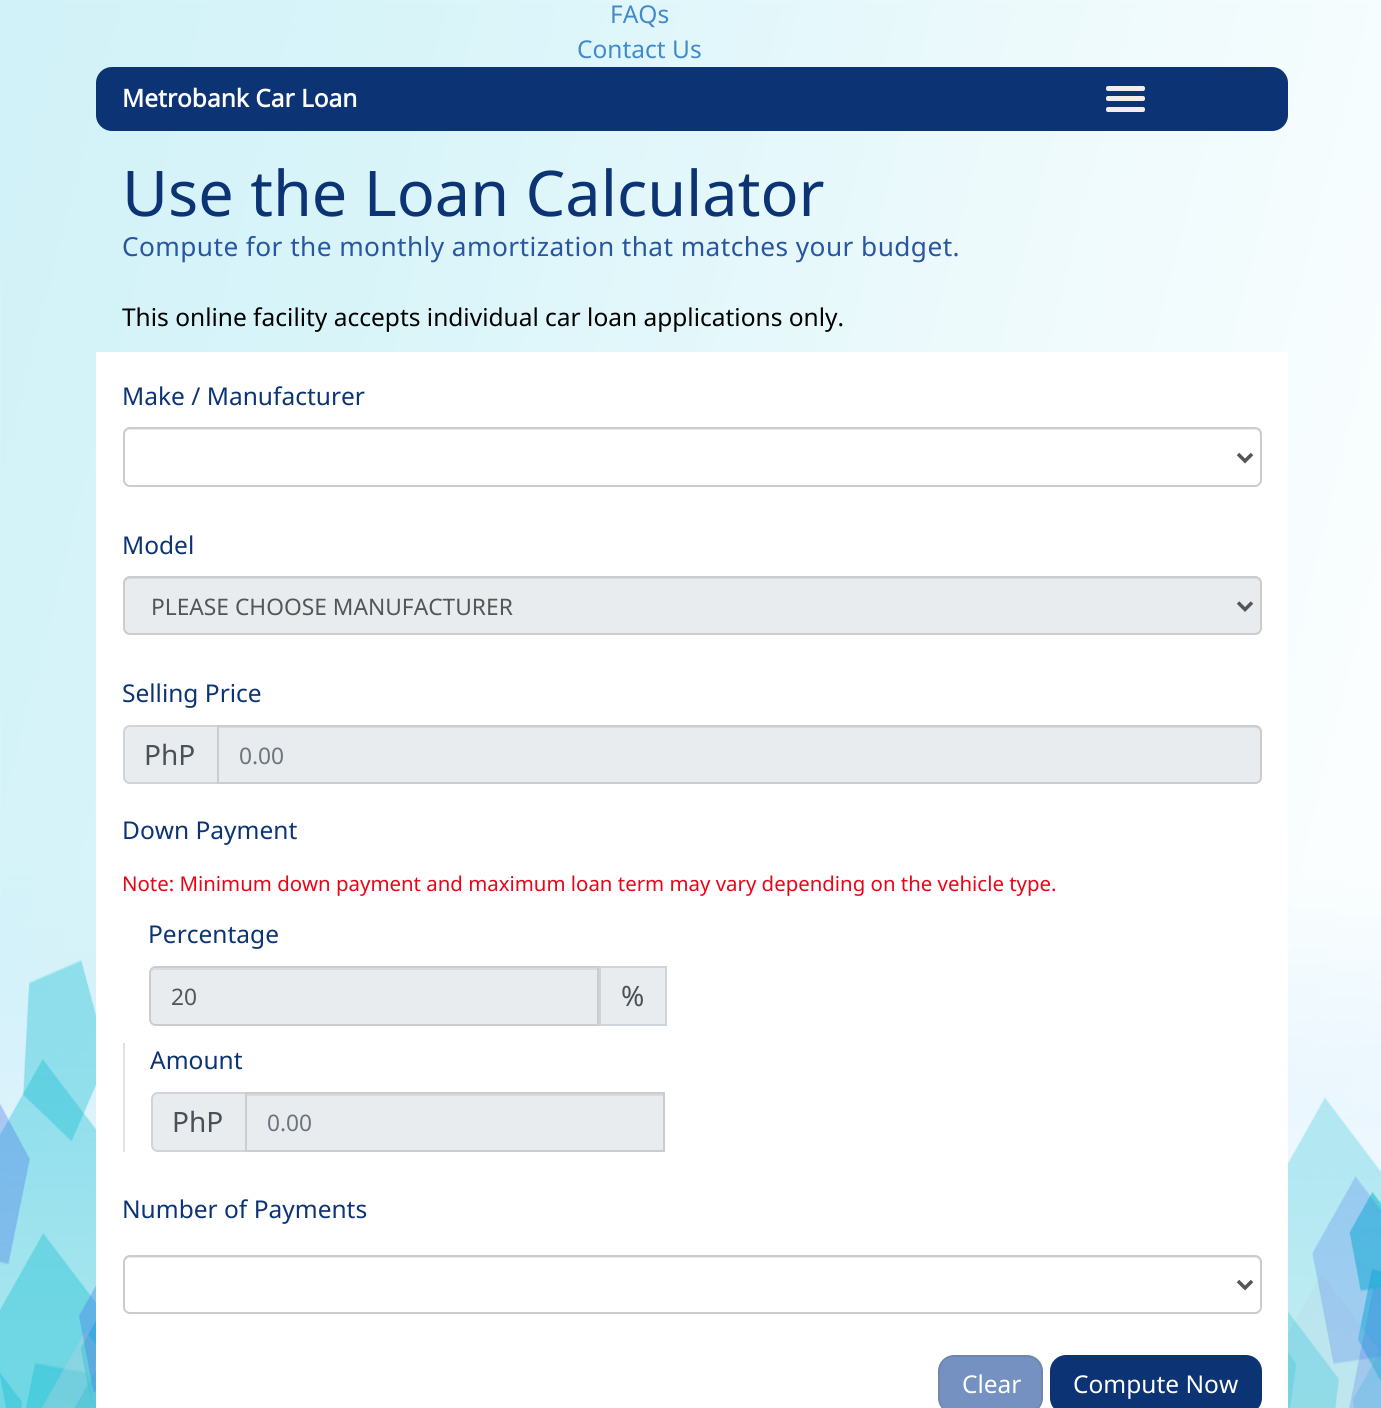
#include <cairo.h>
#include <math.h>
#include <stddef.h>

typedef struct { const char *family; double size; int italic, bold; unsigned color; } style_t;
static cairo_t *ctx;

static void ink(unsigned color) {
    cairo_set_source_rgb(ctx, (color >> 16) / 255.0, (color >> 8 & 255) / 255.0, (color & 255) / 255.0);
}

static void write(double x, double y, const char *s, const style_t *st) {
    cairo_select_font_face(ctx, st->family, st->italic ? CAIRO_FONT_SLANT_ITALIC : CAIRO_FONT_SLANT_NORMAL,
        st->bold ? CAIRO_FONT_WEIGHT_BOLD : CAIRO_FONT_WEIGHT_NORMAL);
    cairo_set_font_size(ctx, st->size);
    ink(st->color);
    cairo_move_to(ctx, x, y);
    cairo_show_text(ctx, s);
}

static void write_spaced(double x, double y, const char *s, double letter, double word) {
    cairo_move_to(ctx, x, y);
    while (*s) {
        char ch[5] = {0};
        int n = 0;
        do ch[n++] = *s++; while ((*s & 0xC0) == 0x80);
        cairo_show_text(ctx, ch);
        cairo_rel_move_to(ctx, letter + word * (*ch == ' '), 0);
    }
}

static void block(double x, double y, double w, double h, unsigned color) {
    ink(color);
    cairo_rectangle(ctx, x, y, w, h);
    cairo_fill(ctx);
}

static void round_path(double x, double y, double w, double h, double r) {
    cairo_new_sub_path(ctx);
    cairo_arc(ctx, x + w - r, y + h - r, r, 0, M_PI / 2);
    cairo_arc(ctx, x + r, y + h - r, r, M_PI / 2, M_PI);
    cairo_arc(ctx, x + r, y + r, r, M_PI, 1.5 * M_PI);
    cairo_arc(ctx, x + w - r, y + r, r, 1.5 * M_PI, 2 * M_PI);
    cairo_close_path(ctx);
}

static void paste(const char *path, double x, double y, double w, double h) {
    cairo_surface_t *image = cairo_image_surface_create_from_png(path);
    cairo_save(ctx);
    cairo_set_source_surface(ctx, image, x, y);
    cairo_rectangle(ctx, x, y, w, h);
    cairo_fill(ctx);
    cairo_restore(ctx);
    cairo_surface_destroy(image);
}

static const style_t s1 = {"Noto Sans", 24.5, 0, 0, 0x428bca};
static const style_t s2 = {"Noto Sans", 24.5, 0, 1, 0xffffff};
static const style_t s3 = {"Noto Sans", 63, 0, 0, 0x0c3475};
static const style_t s4 = {"Noto Sans", 24.5, 0, 0, 0x000000};
static const style_t s5 = {"Noto Sans", 24.5, 0, 0, 0x0c3475};
static const style_t s6 = {"Noto Sans", 22.75, 0, 0, 0x555555};
static const style_t s7 = {"Noto Sans", 28, 0, 0, 0x495057};
static const style_t s8 = {"Noto Sans", 22.75, 0, 0, 0x6c757d};
static const style_t s9 = {"Noto Sans", 20.4, 0, 0, 0xe90417};
static const style_t s10 = {"Noto Sans", 24.5, 0, 0, 0xffffff};

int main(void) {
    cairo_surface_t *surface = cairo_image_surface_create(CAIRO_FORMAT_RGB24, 1381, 1408);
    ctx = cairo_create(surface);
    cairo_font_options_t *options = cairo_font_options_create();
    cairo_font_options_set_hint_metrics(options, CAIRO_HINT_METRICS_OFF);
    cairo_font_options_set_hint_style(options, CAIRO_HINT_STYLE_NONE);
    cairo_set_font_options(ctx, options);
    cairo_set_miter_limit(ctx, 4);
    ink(0xffffff);
    cairo_paint(ctx);
    paste("pic1.png", 0, 0, 1381, 1408);
    write(610, 23, "FAQs", &s1);
    write(577, 58, "Contact Us", &s1);
    ink(0x0c3475);
    round_path(96, 67, 1192, 64, 16);
    cairo_fill(ctx);
    write(122, 107, "Metrobank Car Loan", &s2);
    ink(0xf5ecec);
    round_path(1106, 86, 39, 5, 2);
    cairo_fill(ctx);
    round_path(1106, 96, 39, 5, 2);
    cairo_fill(ctx);
    round_path(1106, 107, 39, 5, 2);
    cairo_fill(ctx);
    write(122, 216, "Use the Loan Calculator", &s3);
    cairo_set_font_size(ctx, 26.25);
    ink(0x2956a0);
    write_spaced(122, 256, "Compute for the monthly amortization that matches your budget.", 0.42, 0);
    write(122, 326, "This online facility accepts individual car loan applications only.", &s4);
    block(96, 352, 1192, 1056, 0xffffff);
    write(122, 405, "Make / Manufacturer", &s5);
    ink(0xececec);
    cairo_new_path(ctx);
    cairo_move_to(ctx, 130, 430);
    cairo_line_to(ctx, 1255, 430);
    cairo_curve_to(ctx, 1258, 430, 1260, 433, 1260, 436);
    cairo_line_to(ctx, 1260, 434);
    cairo_curve_to(ctx, 1260, 431, 1258, 429, 1255, 429);
    cairo_line_to(ctx, 129, 429);
    cairo_curve_to(ctx, 126, 429, 124, 431, 124, 434);
    cairo_line_to(ctx, 124, 436);
    cairo_curve_to(ctx, 124, 433, 127, 430, 130, 430);
    cairo_close_path(ctx);
    cairo_fill(ctx);
    round_path(124, 428, 1137, 58, 6);
    ink(0xcccccc);
    cairo_stroke(ctx);
    cairo_new_path(ctx);
    cairo_move_to(ctx, 1238, 454);
    cairo_line_to(ctx, 1245, 461);
    cairo_line_to(ctx, 1252, 454);
    ink(0x555555);
    cairo_set_line_width(ctx, 3.5);
    cairo_stroke(ctx);
    write(122, 554, "Model", &s5);
    ink(0xe9ecef);
    round_path(124, 578, 1136, 56, 5);
    cairo_fill(ctx);
    cairo_set_source_rgba(ctx, 0, 0, 0, 0.07);
    cairo_new_path(ctx);
    cairo_move_to(ctx, 130, 579);
    cairo_line_to(ctx, 1255, 579);
    cairo_curve_to(ctx, 1258, 579, 1260, 582, 1260, 584);
    cairo_curve_to(ctx, 1260, 581, 1258, 578, 1255, 578);
    cairo_line_to(ctx, 129, 578);
    cairo_curve_to(ctx, 126, 578, 124, 581, 124, 584);
    cairo_curve_to(ctx, 124, 582, 127, 579, 130, 579);
    cairo_close_path(ctx);
    cairo_fill(ctx);
    round_path(124, 577, 1137, 57, 6);
    ink(0xcccccc);
    cairo_set_line_width(ctx, 2);
    cairo_stroke(ctx);
    cairo_new_path(ctx);
    cairo_move_to(ctx, 1238, 602.5);
    cairo_line_to(ctx, 1245, 609.5);
    cairo_line_to(ctx, 1252, 602.5);
    ink(0x555555);
    cairo_set_line_width(ctx, 3.5);
    cairo_stroke(ctx);
    write(151, 615, "PLEASE CHOOSE MANUFACTURER", &s6);
    write(122, 702, "Selling Price", &s5);
    ink(0xe9ecef);
    cairo_new_path(ctx);
    cairo_move_to(ctx, 130, 726);
    cairo_line_to(ctx, 218, 726);
    cairo_line_to(ctx, 218, 783);
    cairo_line_to(ctx, 130, 783);
    cairo_curve_to(ctx, 126.5, 783, 124, 780.5, 124, 777);
    cairo_line_to(ctx, 124, 732);
    cairo_curve_to(ctx, 124, 728.5, 126.5, 726, 130, 726);
    cairo_close_path(ctx);
    cairo_fill_preserve(ctx);
    ink(0xced4da);
    cairo_set_line_width(ctx, 2);
    cairo_stroke(ctx);
    write(144, 765, "PhP", &s7);
    ink(0xe9ecef);
    cairo_new_path(ctx);
    cairo_move_to(ctx, 219, 726);
    cairo_line_to(ctx, 1255, 726);
    cairo_curve_to(ctx, 1258, 726, 1260, 728, 1260, 731);
    cairo_line_to(ctx, 1260, 777);
    cairo_curve_to(ctx, 1260, 780, 1258, 782, 1255, 782);
    cairo_line_to(ctx, 219, 782);
    cairo_close_path(ctx);
    cairo_fill(ctx);
    cairo_set_source_rgba(ctx, 0, 0, 0, 0.07);
    cairo_new_path(ctx);
    cairo_move_to(ctx, 219, 728);
    cairo_line_to(ctx, 1255, 728);
    cairo_curve_to(ctx, 1258, 728, 1260, 730, 1260, 733);
    cairo_line_to(ctx, 1260, 731);
    cairo_curve_to(ctx, 1260, 728, 1258, 726, 1255, 726);
    cairo_line_to(ctx, 219, 726);
    cairo_close_path(ctx);
    cairo_fill(ctx);
    cairo_new_path(ctx);
    cairo_move_to(ctx, 218, 726);
    cairo_line_to(ctx, 1255, 726);
    cairo_curve_to(ctx, 1258.5, 726, 1261, 728.5, 1261, 732);
    cairo_line_to(ctx, 1261, 777);
    cairo_curve_to(ctx, 1261, 780.5, 1258.5, 783, 1255, 783);
    cairo_line_to(ctx, 218, 783);
    cairo_close_path(ctx);
    ink(0xcccccc);
    cairo_stroke(ctx);
    write(239, 764, "0.00", &s8);
    write(122, 839, "Down Payment", &s5);
    write(122, 891, "Note: Minimum down payment and maximum loan term may vary depending on the vehicle type.", &s9);
    write(148, 943, "Percentage", &s5);
    ink(0xe9ecef);
    cairo_new_path(ctx);
    cairo_move_to(ctx, 156, 968);
    cairo_line_to(ctx, 597, 968);
    cairo_line_to(ctx, 597, 1024);
    cairo_line_to(ctx, 156, 1024);
    cairo_curve_to(ctx, 153, 1024, 151, 1022, 151, 1019);
    cairo_line_to(ctx, 151, 973);
    cairo_curve_to(ctx, 151, 970, 153, 968, 156, 968);
    cairo_close_path(ctx);
    cairo_fill(ctx);
    cairo_set_source_rgba(ctx, 0, 0, 0, 0.07);
    cairo_new_path(ctx);
    cairo_move_to(ctx, 156, 970);
    cairo_line_to(ctx, 597, 970);
    cairo_line_to(ctx, 597, 968);
    cairo_line_to(ctx, 156, 968);
    cairo_curve_to(ctx, 154, 968, 151, 970, 151, 972);
    cairo_curve_to(ctx, 152, 971, 154, 970, 156, 970);
    cairo_close_path(ctx);
    cairo_fill(ctx);
    cairo_new_path(ctx);
    cairo_move_to(ctx, 156, 967);
    cairo_line_to(ctx, 598, 967);
    cairo_line_to(ctx, 598, 1025);
    cairo_line_to(ctx, 156, 1025);
    cairo_curve_to(ctx, 152.5, 1025, 150, 1022.5, 150, 1019);
    cairo_line_to(ctx, 150, 973);
    cairo_curve_to(ctx, 150, 969.5, 152.5, 967, 156, 967);
    cairo_close_path(ctx);
    ink(0xcccccc);
    cairo_stroke(ctx);
    write(171, 1005, "20", &s6);
    ink(0xe9ecef);
    cairo_rectangle(ctx, 600, 967, 66, 58);
    cairo_fill_preserve(ctx);
    ink(0xced4da);
    cairo_stroke(ctx);
    write(621, 1006, "%", &s7);
    block(123, 1043, 2, 109, 0xdee2e6);
    write(150, 1069, "Amount", &s5);
    ink(0xe9ecef);
    cairo_new_path(ctx);
    cairo_move_to(ctx, 158, 1093);
    cairo_line_to(ctx, 246, 1093);
    cairo_line_to(ctx, 246, 1151);
    cairo_line_to(ctx, 158, 1151);
    cairo_curve_to(ctx, 154.5, 1151, 152, 1148.5, 152, 1145);
    cairo_line_to(ctx, 152, 1099);
    cairo_curve_to(ctx, 152, 1095.5, 154.5, 1093, 158, 1093);
    cairo_close_path(ctx);
    cairo_fill_preserve(ctx);
    ink(0xced4da);
    cairo_stroke(ctx);
    write(172, 1132, "PhP", &s7);
    block(247, 1096, 416, 54, 0xe9ecef);
    block(247, 1094, 416, 2, 0xd8dadd);
    cairo_rectangle(ctx, 246, 1093, 418, 58);
    ink(0xcccccc);
    cairo_stroke(ctx);
    write(267, 1131, "0.00", &s8);
    write(122, 1218, "Number of Payments", &s5);
    ink(0xececec);
    cairo_new_path(ctx);
    cairo_move_to(ctx, 130, 1258);
    cairo_line_to(ctx, 1255, 1258);
    cairo_curve_to(ctx, 1258, 1258, 1260, 1261, 1260, 1264);
    cairo_line_to(ctx, 1260, 1262);
    cairo_curve_to(ctx, 1260, 1259, 1258, 1257, 1255, 1257);
    cairo_line_to(ctx, 129, 1257);
    cairo_curve_to(ctx, 126, 1257, 124, 1259, 124, 1262);
    cairo_line_to(ctx, 124, 1264);
    cairo_curve_to(ctx, 124, 1261, 127, 1258, 130, 1258);
    cairo_close_path(ctx);
    cairo_fill(ctx);
    round_path(124, 1256, 1137, 57, 6);
    ink(0xcccccc);
    cairo_stroke(ctx);
    cairo_new_path(ctx);
    cairo_move_to(ctx, 1238, 1281);
    cairo_line_to(ctx, 1245, 1288);
    cairo_line_to(ctx, 1252, 1281);
    ink(0x555555);
    cairo_set_line_width(ctx, 3.5);
    cairo_stroke(ctx);
    ink(0x7491c1);
    round_path(939, 1356, 103, 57, 15);
    cairo_fill_preserve(ctx);
    ink(0x6f87ae);
    cairo_set_line_width(ctx, 2);
    cairo_stroke(ctx);
    write(962, 1393, "Clear", &s10);
    ink(0x0c3475);
    round_path(1051, 1356, 210, 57, 15);
    cairo_fill_preserve(ctx);
    cairo_stroke(ctx);
    write(1073, 1393, "Compute Now", &s10);
    cairo_surface_write_to_png(surface, "screenshot.png");
    cairo_font_options_destroy(options);
    cairo_destroy(ctx);
    cairo_surface_destroy(surface);
    return 0;
}
